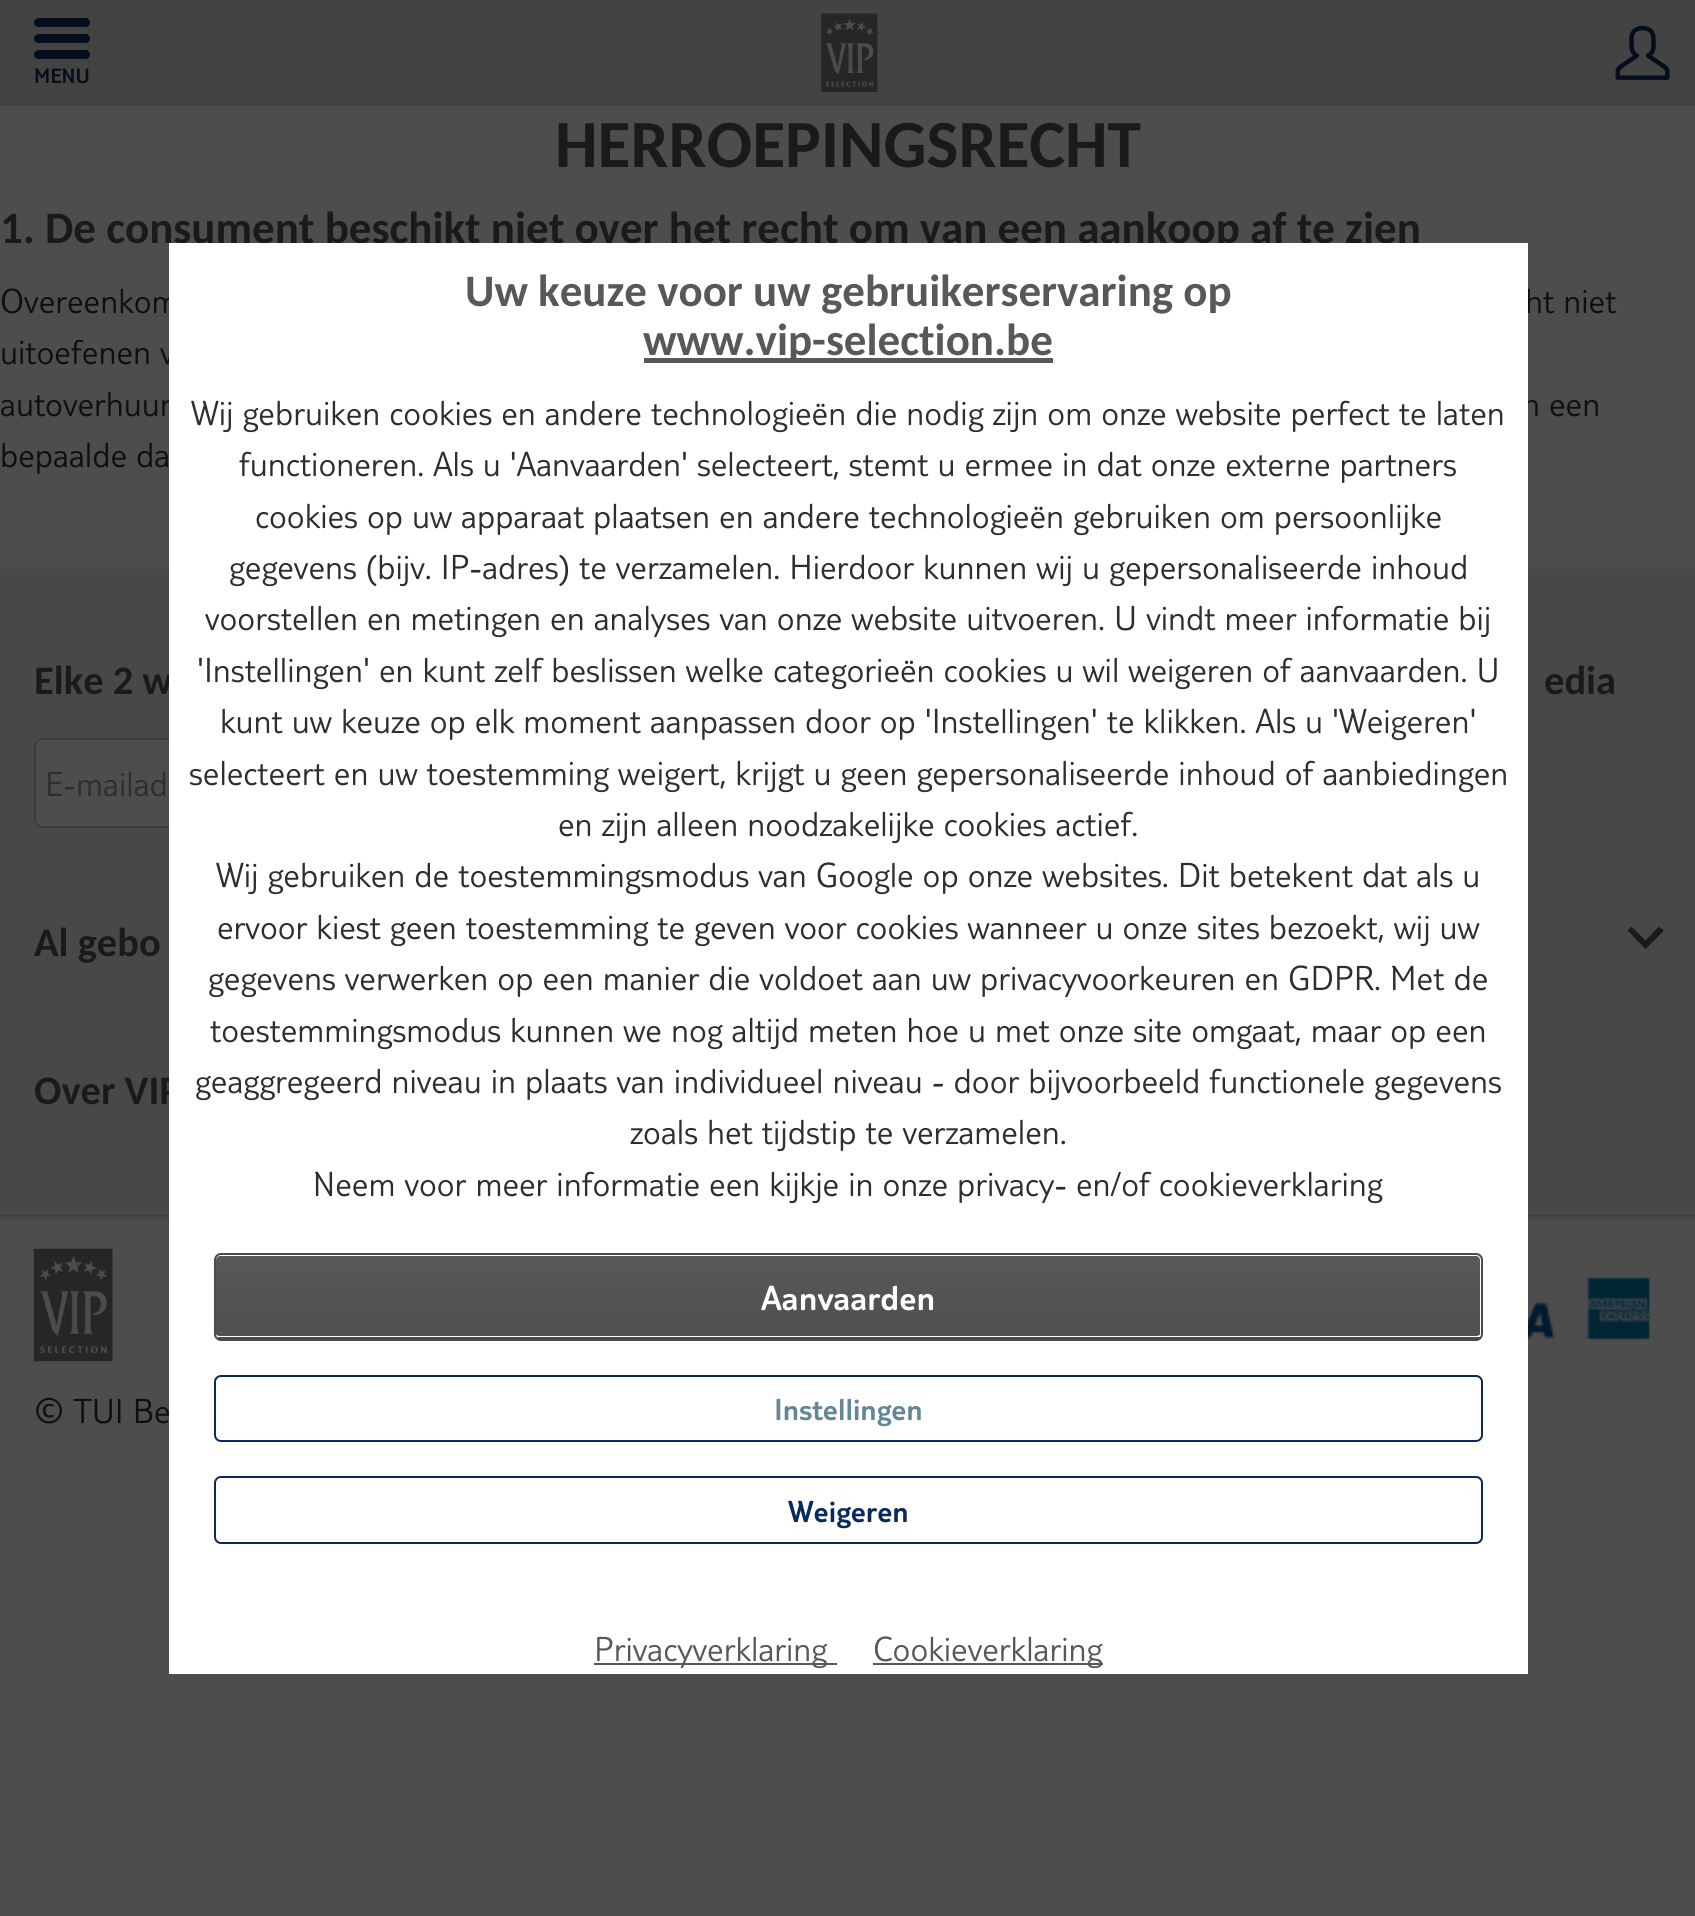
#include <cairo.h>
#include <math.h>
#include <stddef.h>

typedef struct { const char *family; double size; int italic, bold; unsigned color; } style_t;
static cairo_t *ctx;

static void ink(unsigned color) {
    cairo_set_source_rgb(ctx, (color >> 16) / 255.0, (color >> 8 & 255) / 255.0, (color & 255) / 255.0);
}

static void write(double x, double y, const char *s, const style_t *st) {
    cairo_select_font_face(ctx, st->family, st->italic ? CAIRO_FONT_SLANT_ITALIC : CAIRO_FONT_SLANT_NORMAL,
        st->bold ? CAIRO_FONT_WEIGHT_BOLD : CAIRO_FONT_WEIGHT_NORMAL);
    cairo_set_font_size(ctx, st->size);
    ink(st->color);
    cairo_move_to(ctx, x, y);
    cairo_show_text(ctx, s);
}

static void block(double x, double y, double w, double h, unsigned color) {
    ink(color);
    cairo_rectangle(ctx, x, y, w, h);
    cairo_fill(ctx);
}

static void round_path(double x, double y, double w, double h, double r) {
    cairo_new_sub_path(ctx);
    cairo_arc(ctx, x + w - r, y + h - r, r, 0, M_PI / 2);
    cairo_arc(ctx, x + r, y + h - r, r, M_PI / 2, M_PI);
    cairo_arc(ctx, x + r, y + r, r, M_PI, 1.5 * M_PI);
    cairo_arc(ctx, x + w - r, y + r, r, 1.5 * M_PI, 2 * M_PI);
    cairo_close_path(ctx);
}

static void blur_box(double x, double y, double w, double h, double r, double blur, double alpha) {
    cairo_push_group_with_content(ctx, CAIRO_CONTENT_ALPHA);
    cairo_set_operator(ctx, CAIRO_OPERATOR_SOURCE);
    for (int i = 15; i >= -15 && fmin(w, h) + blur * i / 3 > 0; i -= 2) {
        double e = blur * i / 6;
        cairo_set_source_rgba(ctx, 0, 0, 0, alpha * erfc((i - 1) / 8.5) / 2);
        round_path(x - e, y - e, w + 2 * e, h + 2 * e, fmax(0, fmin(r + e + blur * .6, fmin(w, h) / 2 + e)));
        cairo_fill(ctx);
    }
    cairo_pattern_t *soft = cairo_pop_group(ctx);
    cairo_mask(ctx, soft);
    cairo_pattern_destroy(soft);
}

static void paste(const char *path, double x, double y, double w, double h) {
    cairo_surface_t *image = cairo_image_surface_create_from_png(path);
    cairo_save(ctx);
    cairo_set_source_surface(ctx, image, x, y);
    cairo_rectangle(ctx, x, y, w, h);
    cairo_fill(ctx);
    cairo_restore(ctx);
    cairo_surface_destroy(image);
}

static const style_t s1 = {"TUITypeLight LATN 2 Light", 21.5, 0, 0, 0x030d1c};
static const style_t s2 = {"Carlito", 67.5, 0, 1, 0x1a1a1a};
static const style_t s3 = {"Carlito", 45, 0, 1, 0x1a1a1a};
static const style_t s4 = {"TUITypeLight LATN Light", 36, 0, 0, 0x0f0f0f};
static const style_t s5 = {"Carlito", 40.5, 0, 1, 0x1a1a1a};
static const style_t s6 = {"Carlito", 45, 0, 1, 0x585858};
static const style_t s7 = {"TUITypeLight LATN Light", 36, 0, 0, 0x2e2e2e};
static const style_t s8 = {"TUITypeLight LATN 2 Light", 36, 0, 0, 0xffffff};
static const style_t s9 = {"TUITypeLight LATN 2 Light", 31.5, 0, 0, 0x648798};
static const style_t s10 = {"TUITypeLight LATN 2 Light", 31.5, 0, 0, 0x092a5e};
static const style_t s11 = {"TUITypeLight LATN Light", 36, 0, 0, 0x585858};

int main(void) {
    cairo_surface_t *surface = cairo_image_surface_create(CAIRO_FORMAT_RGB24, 1695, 1916);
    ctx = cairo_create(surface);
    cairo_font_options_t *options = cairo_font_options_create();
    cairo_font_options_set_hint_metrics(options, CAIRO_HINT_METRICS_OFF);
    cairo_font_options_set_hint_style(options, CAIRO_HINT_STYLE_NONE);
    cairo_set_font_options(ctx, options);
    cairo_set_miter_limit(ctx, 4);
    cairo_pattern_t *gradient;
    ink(0x4d4d4d);
    cairo_paint(ctx);
    block(0, 0, 1695, 106, 0x434343);
    ink(0x030d1c);
    round_path(34, 18, 56, 9, 4.5);
    cairo_fill(ctx);
    round_path(34, 34, 56, 9, 4.5);
    cairo_fill(ctx);
    round_path(34, 50, 56, 9, 4.5);
    cairo_fill(ctx);
    write(34, 83, "MENU", &s1);
    paste("pic1.png", 1615, 25, 55, 55);
    paste("pic2.png", 821, 13, 57, 80);
    write(555, 167, "HERROEPINGSRECHT", &s2);
    write(0, 243, "1. De consument beschikt niet over het recht om van een aankoop af te zien", &s3);
    write(0, 313, "Overeenkom", &s4);
    write(1525, 313, "ht niet", &s4);
    write(0, 364, "uitoefenen v", &s4);
    write(0, 416, "autoverhuur", &s4);
    write(1522, 416, "n een", &s4);
    write(0, 467, "bepaalde da", &s4);
    block(0, 569, 1695, 646, 0x494847);
    write(34, 694, "Elke 2 w", &s5);
    ink(0x4d4d4d);
    round_path(35, 739, 785, 88, 8);
    cairo_fill_preserve(ctx);
    ink(0x3d3d3d);
    cairo_stroke(ctx);
    cairo_save(ctx);
    cairo_rectangle(ctx, 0, 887, 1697, 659);
    cairo_clip(ctx);
    cairo_rectangle(ctx, 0, 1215, 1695, 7);
    cairo_clip(ctx);
    ink(0x000000);
    blur_box(0, 887, 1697, 328, 0, 4.5, 0.4);
    cairo_restore(ctx);
    write(34, 1104, "Over VIP", &s5);
    block(169, 243, 1359, 1431, 0xffffff);
    write(465, 306, "Uw keuze voor uw gebruikerservaring op", &s6);
    block(644, 358, 409, 5, 0x585858);
    write(643, 355, "www.vip-selection.be", &s6);
    write(191, 425, "Wij gebruiken cookies en andere technologieën die nodig zijn om onze website perfect te laten", &s7);
    write(239, 476, "functioneren. Als u 'Aanvaarden' selecteert, stemt u ermee in dat onze externe partners", &s7);
    write(255, 528, "cookies op uw apparaat plaatsen en andere technologieën gebruiken om persoonlijke", &s7);
    write(229, 579, "gegevens (bijv. IP-adres) te verzamelen. Hierdoor kunnen wij u gepersonaliseerde inhoud", &s7);
    write(205, 630, "voorstellen en metingen en analyses van onze website uitvoeren. U vindt meer informatie bij", &s7);
    write(197, 682, "'Instellingen' en kunt zelf beslissen welke categorieën cookies u wil weigeren of aanvaarden. U", &s7);
    write(220, 733, "kunt uw keuze op elk moment aanpassen door op 'Instellingen' te klikken. Als u 'Weigeren'", &s7);
    write(189, 785, "selecteert en uw toestemming weigert, krijgt u geen gepersonaliseerde inhoud of aanbiedingen", &s7);
    write(558, 836, "en zijn alleen noodzakelijke cookies actief.", &s7);
    write(216, 887, "Wij gebruiken de toestemmingsmodus van Google op onze websites. Dit betekent dat als u", &s7);
    write(217, 939, "ervoor kiest geen toestemming te geven voor cookies wanneer u onze sites bezoekt, wij uw", &s7);
    write(208, 990, "gegevens verwerken op een manier die voldoet aan uw privacyvoorkeuren en GDPR. Met de", &s7);
    write(210, 1042, "toestemmingsmodus kunnen we nog altijd meten hoe u met onze site omgaat, maar op een", &s7);
    write(195, 1093, "geaggregeerd niveau in plaats van individueel niveau - door bijvoorbeeld functionele gegevens", &s7);
    write(630, 1144, "zoals het tijdstip te verzamelen.", &s7);
    write(313, 1196, "Neem voor meer informatie een kijkje in onze privacy- en/of cookieverklaring", &s7);
    ink(0x585858);
    cairo_new_path(ctx);
    cairo_move_to(ctx, 220, 1256);
    cairo_line_to(ctx, 1476, 1256);
    cairo_curve_to(ctx, 1478, 1256, 1480, 1258, 1480, 1260);
    cairo_line_to(ctx, 1480, 1334);
    cairo_curve_to(ctx, 1480, 1335, 1478, 1336, 1476, 1336);
    cairo_line_to(ctx, 220, 1336);
    cairo_curve_to(ctx, 218, 1336, 216, 1335, 216, 1334);
    cairo_line_to(ctx, 216, 1260);
    cairo_curve_to(ctx, 216, 1258, 218, 1256, 220, 1256);
    cairo_close_path(ctx);
    cairo_fill(ctx);
    gradient = cairo_pattern_create_linear(848, 1256, 848, 1337);
    cairo_pattern_add_color_stop_rgba(gradient, 0, 0, 0, 0, 0);
    cairo_pattern_add_color_stop_rgba(gradient, 1, 0, 0, 0, 0.1);
    cairo_set_source(ctx, gradient);
    cairo_pattern_destroy(gradient);
    cairo_new_path(ctx);
    cairo_move_to(ctx, 220, 1256);
    cairo_line_to(ctx, 1476, 1256);
    cairo_curve_to(ctx, 1478, 1256, 1480, 1258, 1480, 1260);
    cairo_line_to(ctx, 1480, 1334);
    cairo_curve_to(ctx, 1480, 1335, 1478, 1336, 1476, 1336);
    cairo_line_to(ctx, 220, 1336);
    cairo_curve_to(ctx, 218, 1336, 216, 1335, 216, 1334);
    cairo_line_to(ctx, 216, 1260);
    cairo_curve_to(ctx, 216, 1258, 218, 1256, 220, 1256);
    cairo_close_path(ctx);
    cairo_fill(ctx);
    round_path(215, 1254, 1267, 86, 6);
    ink(0x4b4b4b);
    cairo_stroke(ctx);
    block(218, 1337, 1263, 2, 0x4b4b4b);
    write(761, 1310, "Aanvaarden", &s8);
    round_path(215, 1376, 1267, 65, 6);
    ink(0x092a5e);
    cairo_stroke(ctx);
    write(774, 1420, "Instellingen", &s9);
    round_path(215, 1477, 1267, 66, 6);
    ink(0x092a5e);
    cairo_stroke(ctx);
    write(788, 1522, "Weigeren", &s10);
    block(594, 1663, 243, 2, 0x585858);
    write(594, 1661, "Privacyverklaring", &s11);
    block(873, 1663, 230, 2, 0x585858);
    write(873, 1661, "Cookieverklaring", &s11);
    write(45, 796, "E-mailad", &s7);
    write(1544, 694, "edia", &s5);
    write(34, 956, "Al gebo", &s5);
    cairo_new_path(ctx);
    cairo_move_to(ctx, 1627.5, 930.5);
    cairo_line_to(ctx, 1631.5, 926.5);
    cairo_line_to(ctx, 1645.5, 940.5);
    cairo_line_to(ctx, 1659, 926.5);
    cairo_line_to(ctx, 1663, 930);
    cairo_line_to(ctx, 1663, 931.5);
    cairo_line_to(ctx, 1645.5, 949);
    cairo_close_path(ctx);
    cairo_fill(ctx);
    paste("pic3.png", 33, 1248, 80, 114);
    paste("pic4.png", 1528, 1302, 28, 38);
    paste("pic5.png", 1583, 1277, 67, 63);
    write(34, 1423, "© TUI Be", &s4);
    cairo_surface_write_to_png(surface, "screenshot.png");
    cairo_font_options_destroy(options);
    cairo_destroy(ctx);
    cairo_surface_destroy(surface);
    return 0;
}
